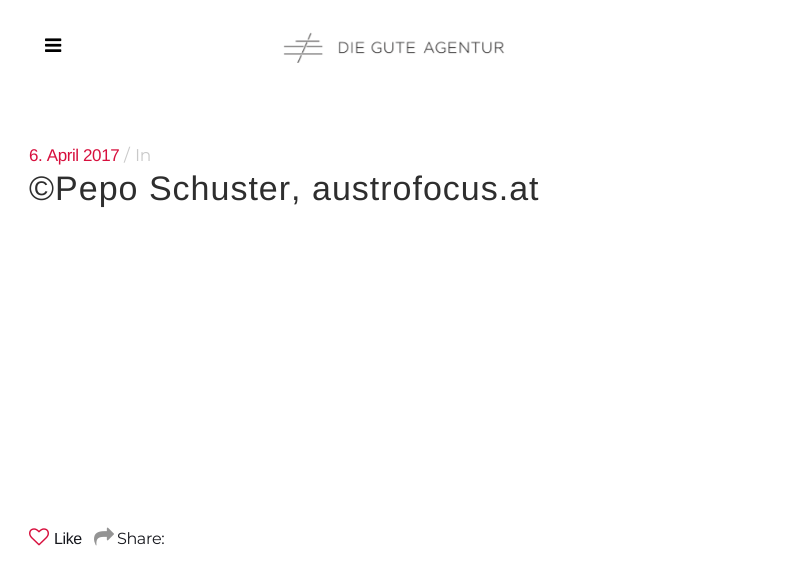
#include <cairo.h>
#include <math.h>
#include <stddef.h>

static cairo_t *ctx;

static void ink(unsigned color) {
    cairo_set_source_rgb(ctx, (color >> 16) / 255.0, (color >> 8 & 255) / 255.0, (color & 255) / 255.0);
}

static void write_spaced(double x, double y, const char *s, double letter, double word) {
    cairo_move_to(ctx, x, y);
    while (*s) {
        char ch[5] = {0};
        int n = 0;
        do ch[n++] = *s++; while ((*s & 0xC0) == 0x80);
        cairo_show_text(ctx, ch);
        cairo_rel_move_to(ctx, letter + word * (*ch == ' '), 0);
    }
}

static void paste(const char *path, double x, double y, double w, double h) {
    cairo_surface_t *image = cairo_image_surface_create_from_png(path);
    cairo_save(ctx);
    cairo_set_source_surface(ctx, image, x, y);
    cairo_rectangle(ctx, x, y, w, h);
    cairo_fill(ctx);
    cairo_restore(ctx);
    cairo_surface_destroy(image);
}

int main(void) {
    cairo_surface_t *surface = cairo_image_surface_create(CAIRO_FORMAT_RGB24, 788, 571);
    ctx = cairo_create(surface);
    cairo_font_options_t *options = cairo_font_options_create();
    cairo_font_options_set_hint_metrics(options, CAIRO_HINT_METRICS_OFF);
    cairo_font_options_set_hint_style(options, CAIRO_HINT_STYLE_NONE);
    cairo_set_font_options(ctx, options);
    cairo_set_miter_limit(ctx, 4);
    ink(0xffffff);
    cairo_paint(ctx);
    paste("pic1.png", 45, 38, 17, 14);
    paste("pic2.png", 283, 32, 222, 31);
    cairo_select_font_face(ctx, "Liberation Sans", CAIRO_FONT_SLANT_NORMAL, CAIRO_FONT_WEIGHT_NORMAL);
    cairo_set_font_size(ctx, 17);
    ink(0xd70f3d);
    write_spaced(29, 161, "6. April 2017", -0.4, 0);
    cairo_select_font_face(ctx, "Montserrat", CAIRO_FONT_SLANT_NORMAL, CAIRO_FONT_WEIGHT_NORMAL);
    ink(0xc9c9c9);
    write_spaced(124, 161, "/", -0.4, 0);
    write_spaced(135, 161, "In", -0.4, 0);
    cairo_select_font_face(ctx, "Liberation Sans", CAIRO_FONT_SLANT_NORMAL, CAIRO_FONT_WEIGHT_NORMAL);
    cairo_set_font_size(ctx, 34);
    ink(0x2e2e2e);
    write_spaced(29, 200, "©Pepo Schuster, austrofocus.at", 1, 0);
    paste("pic3.png", 29, 528, 20, 18);
    cairo_set_font_size(ctx, 16);
    ink(0x16171d);
    write_spaced(54, 544, "Like", -0.4, 0);
    paste("pic4.png", 94, 527, 20, 19);
    cairo_select_font_face(ctx, "Montserrat", CAIRO_FONT_SLANT_NORMAL, CAIRO_FONT_WEIGHT_NORMAL);
    write_spaced(117, 544, "Share:", -0.4, 0);
    cairo_surface_write_to_png(surface, "screenshot.png");
    cairo_font_options_destroy(options);
    cairo_destroy(ctx);
    cairo_surface_destroy(surface);
    return 0;
}
